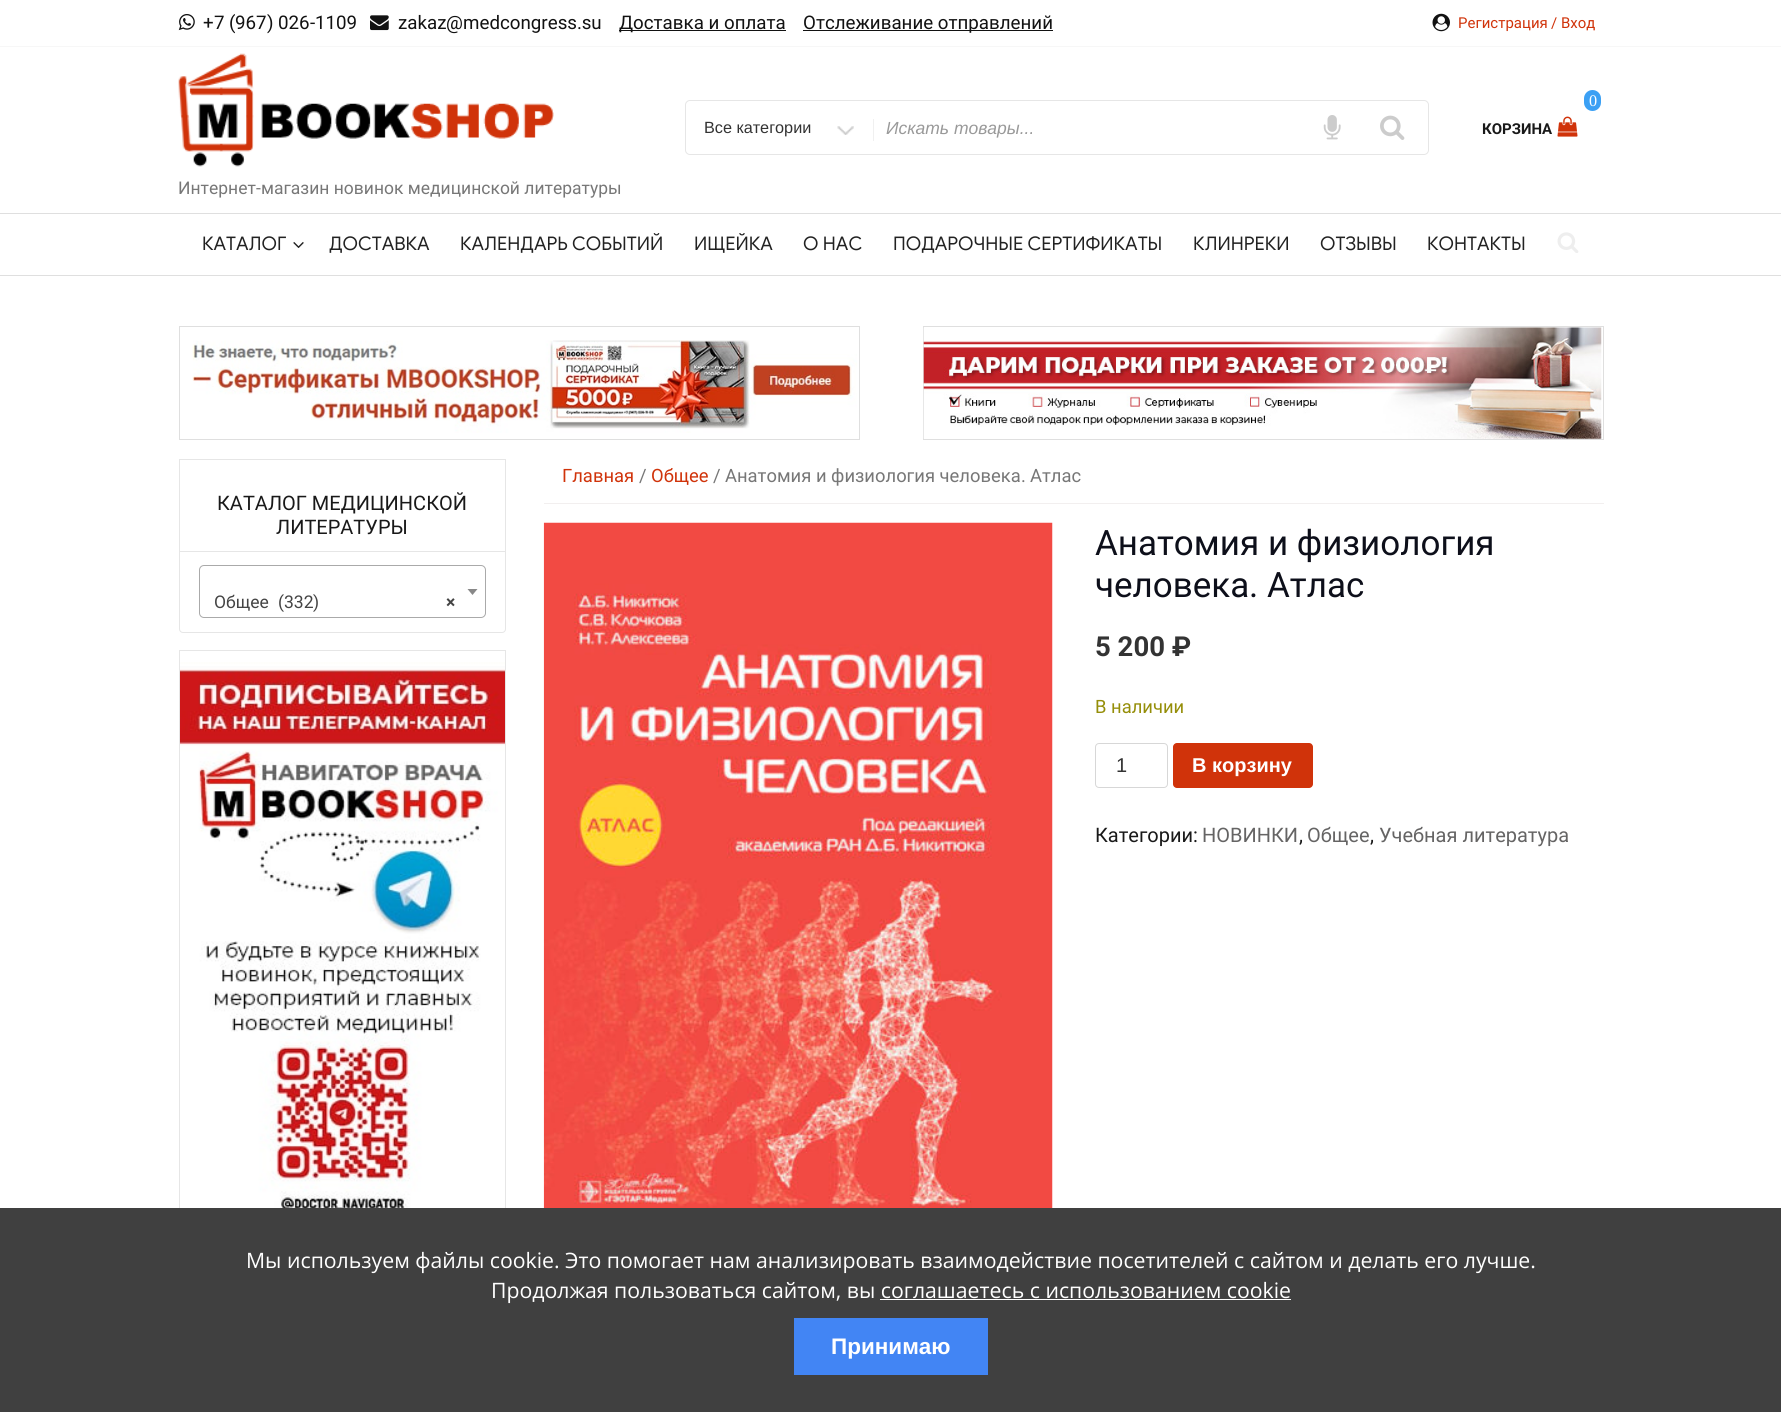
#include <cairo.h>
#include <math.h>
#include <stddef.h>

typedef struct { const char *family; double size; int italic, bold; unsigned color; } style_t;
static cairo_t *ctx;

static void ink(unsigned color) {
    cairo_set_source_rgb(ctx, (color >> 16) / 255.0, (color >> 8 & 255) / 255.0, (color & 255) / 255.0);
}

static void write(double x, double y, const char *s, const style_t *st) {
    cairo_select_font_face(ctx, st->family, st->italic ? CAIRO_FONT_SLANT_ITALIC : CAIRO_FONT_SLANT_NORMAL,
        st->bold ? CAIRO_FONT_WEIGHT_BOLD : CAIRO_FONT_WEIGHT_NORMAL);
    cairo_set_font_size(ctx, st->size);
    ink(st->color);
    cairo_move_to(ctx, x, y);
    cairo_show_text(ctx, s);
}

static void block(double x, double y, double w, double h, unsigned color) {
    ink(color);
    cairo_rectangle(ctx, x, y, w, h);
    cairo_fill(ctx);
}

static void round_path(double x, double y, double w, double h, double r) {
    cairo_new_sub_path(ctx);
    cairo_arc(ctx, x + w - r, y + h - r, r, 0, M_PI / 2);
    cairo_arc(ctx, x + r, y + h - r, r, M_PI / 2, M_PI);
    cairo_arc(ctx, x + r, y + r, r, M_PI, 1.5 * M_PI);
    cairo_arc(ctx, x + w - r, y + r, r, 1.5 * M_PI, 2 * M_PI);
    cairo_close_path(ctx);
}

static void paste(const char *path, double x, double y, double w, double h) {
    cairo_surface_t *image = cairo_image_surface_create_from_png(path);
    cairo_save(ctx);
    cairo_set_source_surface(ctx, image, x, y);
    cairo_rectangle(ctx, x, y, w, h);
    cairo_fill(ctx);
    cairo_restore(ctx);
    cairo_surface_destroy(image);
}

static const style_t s1 = {"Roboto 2", 18.75, 0, 0, 0x121212};
static const style_t s2 = {"Roboto", 18.75, 0, 0, 0x121212};
static const style_t s3 = {"Roboto", 15, 0, 0, 0xd0330a};
static const style_t s4 = {"Roboto 2", 15, 0, 0, 0xd0330a};
static const style_t s5 = {"Liberation Sans", 16.25, 0, 0, 0x333333};
static const style_t s6 = {"Liberation Sans", 17.5, 1, 0, 0x999999};
static const style_t s7 = {"Liberation Serif", 16.25, 0, 0, 0xffffff};
static const style_t s8 = {"Roboto", 15, 0, 1, 0x191919};
static const style_t s9 = {"Roboto", 17.5, 0, 0, 0x777777};
static const style_t s10 = {"Roboto 2", 17.5, 0, 0, 0x777777};
static const style_t s11 = {"Google Sans", 18.75, 0, 0, 0x222222};
static const style_t s12 = {"Roboto", 20, 0, 0, 0x191919};
static const style_t s13 = {"Roboto", 17.5, 0, 0, 0x444444};
static const style_t s14 = {"Roboto 2", 17.5, 0, 0, 0x444444};
static const style_t s15 = {"Roboto", 17.5, 0, 1, 0x444444};
static const style_t s16 = {"Roboto", 18.4, 0, 0, 0xd0330a};
static const style_t s17 = {"Roboto 2", 18.4, 0, 0, 0x777777};
static const style_t s18 = {"Roboto", 18.4, 0, 0, 0x777777};
static const style_t s19 = {"Roboto", 35, 0, 0, 0x0d0f1a};
static const style_t s20 = {"Roboto 2", 35, 0, 0, 0x0d0f1a};
static const style_t s21 = {"Roboto", 27.5, 0, 1, 0x333333};
static const style_t s22 = {"Roboto", 18.4, 0, 0, 0x958e09};
static const style_t s23 = {"Liberation Sans", 20, 0, 0, 0x333333};
static const style_t s24 = {"Liberation Sans", 20, 0, 1, 0xffffff};
static const style_t s25 = {"Roboto 2", 20, 0, 0, 0x191919};
static const style_t s26 = {"Roboto", 20, 0, 0, 0x656464};
static const style_t s27 = {"Open Sans", 21.25, 0, 0, 0xffffff};
static const style_t s28 = {"Liberation Sans", 22.5, 0, 1, 0xffffff};

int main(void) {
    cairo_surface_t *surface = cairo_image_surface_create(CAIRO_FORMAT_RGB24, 1781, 1412);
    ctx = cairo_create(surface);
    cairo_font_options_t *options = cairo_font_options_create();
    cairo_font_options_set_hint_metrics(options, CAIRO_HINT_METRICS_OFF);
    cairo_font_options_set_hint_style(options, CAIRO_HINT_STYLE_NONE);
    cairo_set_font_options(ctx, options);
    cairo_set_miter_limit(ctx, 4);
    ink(0xffffff);
    cairo_paint(ctx);
    block(0, 46, 1781, 1, 0xf7f7f7);
    paste("pic1.png", 178, 14, 17, 17);
    write(203, 29, "+", &s1);
    write(214, 29, "7", &s2);
    write(229, 29, "(", &s1);
    write(235, 29, "967", &s2);
    write(267, 29, ")", &s1);
    write(278, 29, "026", &s2);
    write(310, 29, "-", &s1);
    write(315, 29, "1109", &s2);
    paste("pic2.png", 370, 15, 19, 16);
    write(398, 29, "zakaz", &s2);
    write(446, 29, "@", &s1);
    write(463, 29, "medcongress su", &s2);
    write(577, 29, ".", &s1);
    block(619, 30, 167, 1, 0x121212);
    write(619, 29, "Доставка и оплата", &s2);
    block(803, 30, 250, 1, 0x121212);
    write(803, 29, "Отслеживание отправлений", &s2);
    paste("pic3.png", 1432, 13, 18, 19);
    write(1458, 28, "Регистрация", &s3);
    write(1551, 28, "/", &s4);
    write(1561, 28, "Вход", &s3);
    round_path(685.5, 100.5, 743, 54, 4.5);
    ink(0xe6e6e6);
    cairo_set_line_width(ctx, 1);
    cairo_stroke(ctx);
    paste("pic4.png", 837, 126, 17, 9);
    write(704, 133, "Все категории", &s5);
    block(873, 119, 1, 22, 0xf0f0f0);
    write(886, 134, "Искать товары...", &s6);
    paste("pic5.png", 1323, 115, 18, 25);
    paste("pic6.png", 1380, 115, 25, 25);
    ink(0x3ba0f4);
    round_path(1584, 90, 17, 21, 8.5);
    cairo_fill(ctx);
    write(1589, 106, "0", &s7);
    paste("pic7.png", 1557, 116, 21, 21);
    write(1482, 134, "КОРЗИНА", &s8);
    paste("pic8.png", 178, 53, 376, 114);
    write(178, 194, "Интернет", &s9);
    write(256, 194, "-", &s10);
    write(261, 194, "магазин новинок медицинской литературы", &s9);
    block(0, 213, 1781, 1, 0xdfdfdf);
    block(0, 275, 1781, 1, 0xdfdfdf);
    write(202, 250, "КАТАЛОГ", &s11);
    paste("pic9.png", 293, 242, 11, 6);
    write(329, 250, "ДОСТАВКА", &s11);
    write(460, 250, "КАЛЕНДАРЬ СОБЫТИЙ", &s11);
    write(694, 250, "ИЩЕЙКА", &s11);
    write(803, 250, "О НАС", &s11);
    write(893, 250, "ПОДАРОЧНЫЕ СЕРТИФИКАТЫ", &s11);
    write(1193, 250, "КЛИНРЕКИ", &s11);
    write(1320, 250, "ОТЗЫВЫ", &s11);
    write(1427, 250, "КОНТАКТЫ", &s11);
    paste("pic10.png", 1557, 232, 22, 21);
    cairo_rectangle(ctx, 179.5, 326.5, 680, 113);
    ink(0xdfdfdf);
    cairo_stroke(ctx);
    paste("pic11.png", 192, 340, 665, 93);
    cairo_rectangle(ctx, 923.5, 326.5, 680, 113);
    cairo_stroke(ctx);
    paste("pic12.png", 923, 327, 679, 112);
    cairo_new_path(ctx);
    cairo_move_to(ctx, 179.5, 459.5);
    cairo_line_to(ctx, 505.5, 459.5);
    cairo_line_to(ctx, 505.5, 629);
    cairo_curve_to(ctx, 505.5, 631, 504, 632.5, 502, 632.5);
    cairo_line_to(ctx, 183, 632.5);
    cairo_curve_to(ctx, 181, 632.5, 179.5, 631, 179.5, 629);
    cairo_close_path(ctx);
    ink(0xe6e6e6);
    cairo_stroke(ctx);
    block(180, 551, 325, 1, 0xe6e6e6);
    write(217, 510, "КАТАЛОГ МЕДИЦИНСКОЙ", &s12);
    write(276, 534, "ЛИТЕРАТУРЫ", &s12);
    round_path(199.5, 565.5, 286, 52, 4.5);
    ink(0xaaaaaa);
    cairo_stroke(ctx);
    ink(0x888888);
    cairo_new_path(ctx);
    cairo_move_to(ctx, 467.5, 589);
    cairo_line_to(ctx, 477.5, 589);
    cairo_line_to(ctx, 472.5, 595);
    cairo_close_path(ctx);
    cairo_fill(ctx);
    write(214, 608, "Общее", &s13);
    write(278, 608, "(", &s14);
    write(284, 608, "332", &s13);
    write(313, 608, ")", &s14);
    write(446, 608, "×", &s15);
    cairo_rectangle(ctx, 179.5, 650.5, 326, 577);
    ink(0xe6e6e6);
    cairo_stroke(ctx);
    paste("pic13.png", 180, 662, 325, 546);
    block(544, 503, 1060, 1, 0xf2efef);
    write(562, 482, "Главная", &s16);
    write(639, 482, "/", &s17);
    write(651, 482, "Общее", &s16);
    write(713, 482, "/", &s17);
    write(725, 482, "Анатомия и физиология человека", &s18);
    write(1021, 482, ".", &s17);
    write(1030, 482, "Атлас", &s18);
    paste("pic14.png", 543, 522, 510, 686);
    write(1095, 555, "Анатомия и физиология", &s19);
    write(1095, 597, "человека", &s19);
    write(1249, 597, ".", &s20);
    write(1267, 597, "Атлас", &s19);
    write(1095, 656, "5 200 ₽", &s21);
    write(1095, 713, "В наличии", &s22);
    round_path(1095.5, 743.5, 72, 44, 3.5);
    ink(0xd7d7d7);
    cairo_stroke(ctx);
    write(1116, 772, "1", &s23);
    ink(0xd0330a);
    round_path(1173, 743, 140, 45, 4);
    cairo_fill(ctx);
    write(1192, 772, "В корзину", &s24);
    write(1095, 842, "Категории", &s12);
    write(1193, 842, ":", &s25);
    write(1202, 842, "НОВИНКИ", &s26);
    write(1299, 842, ",", &s25);
    write(1307, 842, "Общее", &s26);
    write(1370, 842, ",", &s25);
    write(1379, 842, "Учебная литература", &s26);
    block(0, 1208, 1781, 204, 0x404040);
    write(246, 1268, "Мы используем файлы cookie. Это помогает нам анализировать взаимодействие посетителей с сайтом и делать его лучше.", &s27);
    write(491, 1298, "Продолжая пользоваться сайтом, вы соглашаетесь с использованием cookie", &s27);
    block(880, 1299, 411, 1, 0xffffff);
    block(794, 1318, 194, 57, 0x4285f4);
    write(831, 1354, "Принимаю", &s28);
    cairo_surface_write_to_png(surface, "screenshot.png");
    cairo_font_options_destroy(options);
    cairo_destroy(ctx);
    cairo_surface_destroy(surface);
    return 0;
}
